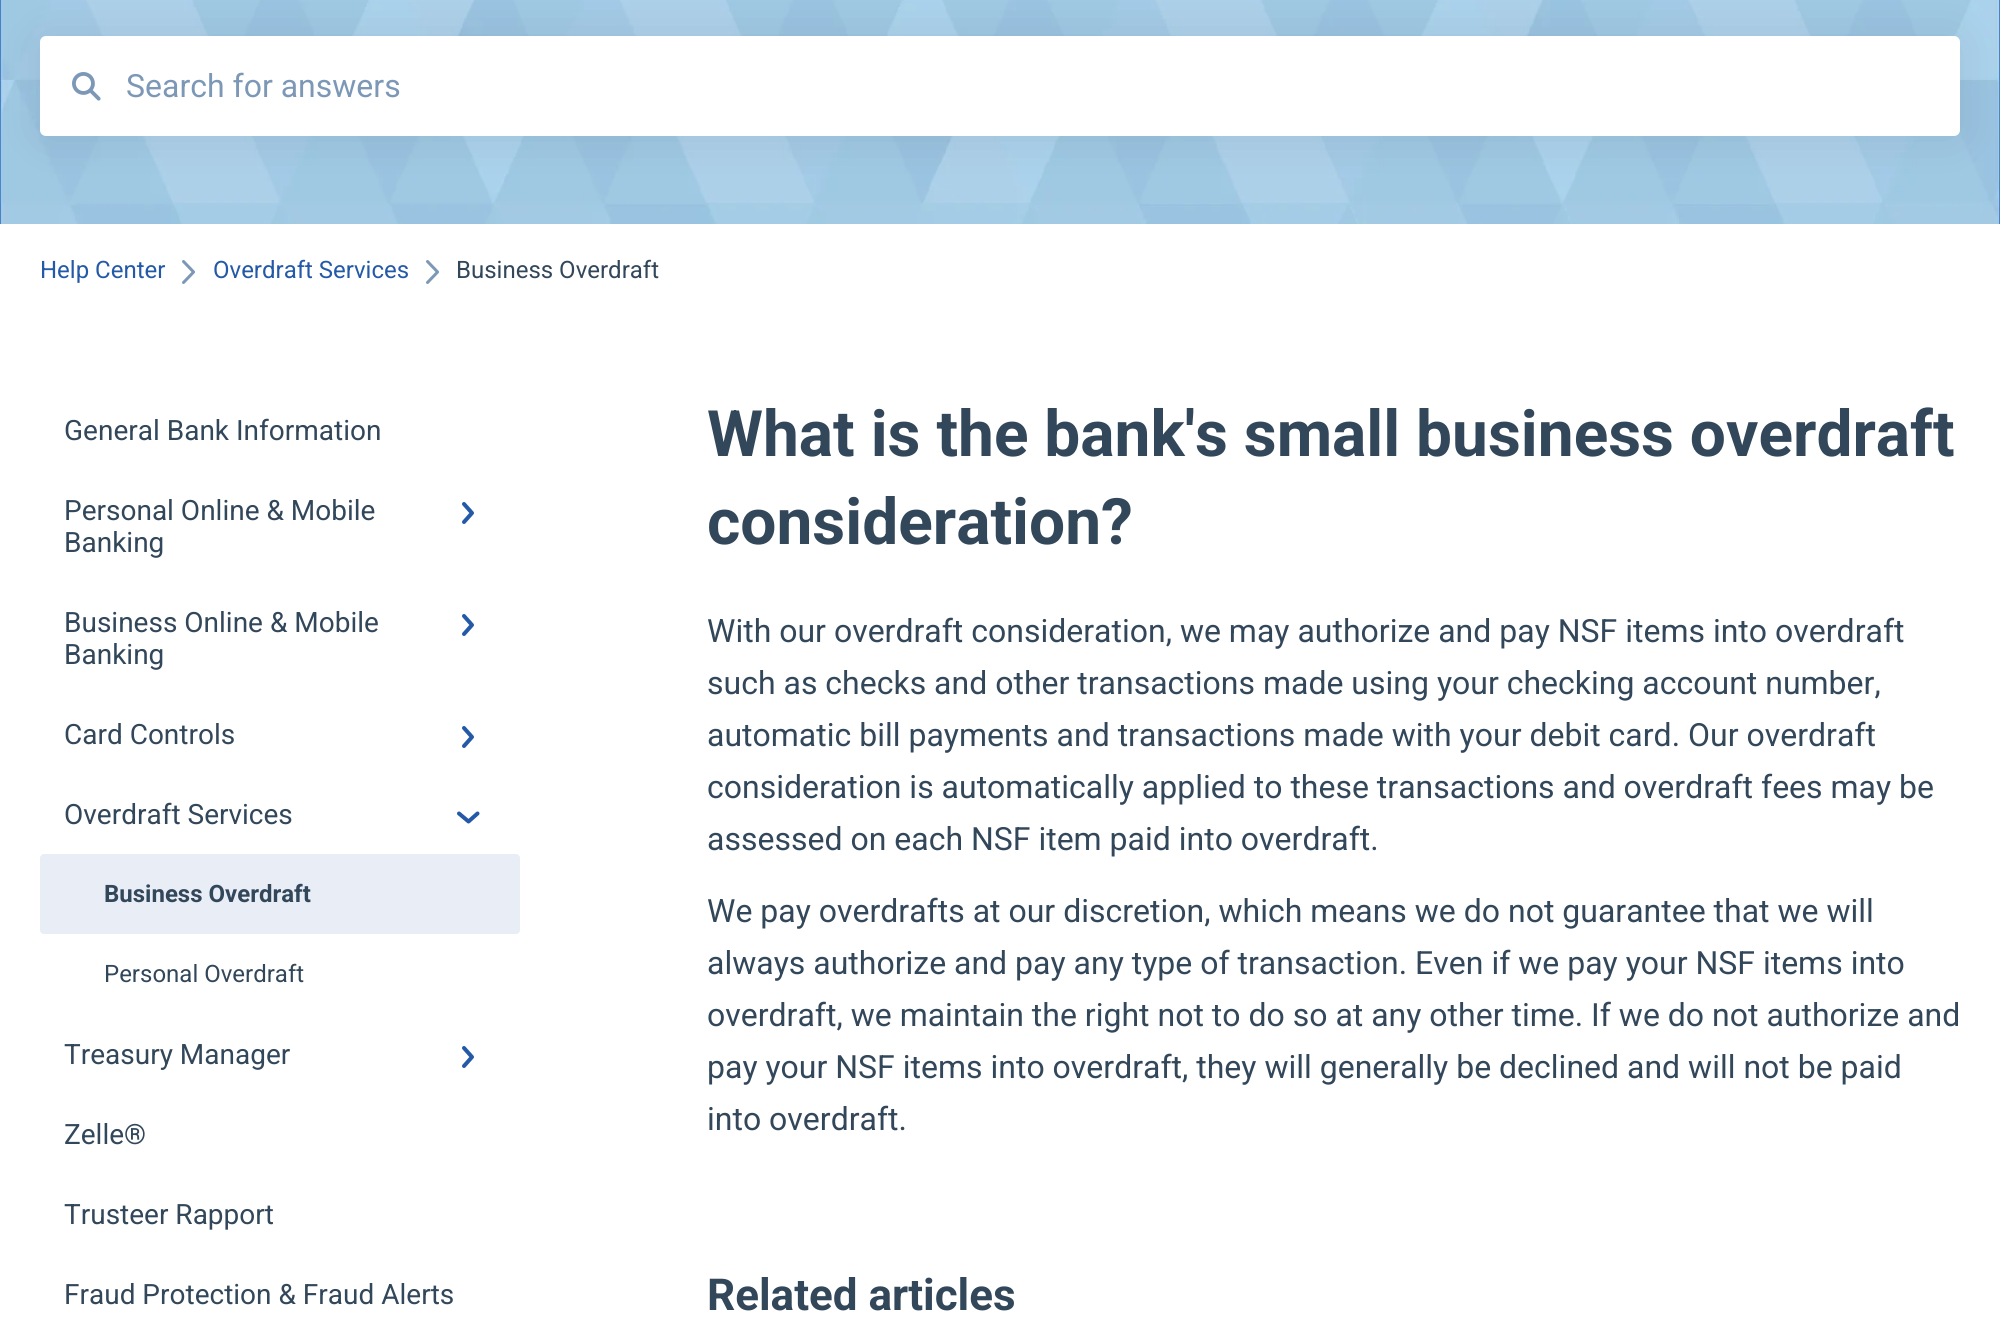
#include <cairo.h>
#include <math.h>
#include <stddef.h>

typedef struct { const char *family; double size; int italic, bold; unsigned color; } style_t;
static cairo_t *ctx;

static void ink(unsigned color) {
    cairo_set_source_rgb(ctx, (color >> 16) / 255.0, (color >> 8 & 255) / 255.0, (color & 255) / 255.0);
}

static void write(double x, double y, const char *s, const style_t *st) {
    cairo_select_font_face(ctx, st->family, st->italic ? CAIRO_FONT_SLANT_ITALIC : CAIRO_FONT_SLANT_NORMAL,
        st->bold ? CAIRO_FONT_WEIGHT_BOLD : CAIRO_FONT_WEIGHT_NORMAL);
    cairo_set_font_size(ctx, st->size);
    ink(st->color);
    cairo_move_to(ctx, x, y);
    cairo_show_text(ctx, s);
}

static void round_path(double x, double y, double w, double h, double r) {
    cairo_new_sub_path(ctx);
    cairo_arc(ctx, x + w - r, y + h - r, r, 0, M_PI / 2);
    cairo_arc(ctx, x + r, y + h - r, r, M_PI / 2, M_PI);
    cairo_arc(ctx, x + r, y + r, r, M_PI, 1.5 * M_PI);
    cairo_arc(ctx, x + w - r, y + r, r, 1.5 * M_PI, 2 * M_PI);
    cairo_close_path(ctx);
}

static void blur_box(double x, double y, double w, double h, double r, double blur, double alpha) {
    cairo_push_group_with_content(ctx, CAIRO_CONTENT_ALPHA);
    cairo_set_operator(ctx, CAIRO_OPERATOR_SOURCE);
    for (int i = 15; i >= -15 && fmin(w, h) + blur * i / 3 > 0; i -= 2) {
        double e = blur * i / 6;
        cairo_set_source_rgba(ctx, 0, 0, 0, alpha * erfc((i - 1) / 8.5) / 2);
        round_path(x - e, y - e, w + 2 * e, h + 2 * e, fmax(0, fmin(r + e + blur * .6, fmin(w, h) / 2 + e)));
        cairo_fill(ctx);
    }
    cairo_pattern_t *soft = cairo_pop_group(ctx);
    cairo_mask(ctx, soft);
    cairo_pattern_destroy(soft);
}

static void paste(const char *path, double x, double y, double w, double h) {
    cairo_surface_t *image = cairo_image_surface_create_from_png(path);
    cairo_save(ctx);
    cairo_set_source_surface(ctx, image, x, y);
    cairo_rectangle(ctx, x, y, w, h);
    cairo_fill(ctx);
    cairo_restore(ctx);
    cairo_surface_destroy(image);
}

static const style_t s1 = {"Roboto", 32, 0, 0, 0x7c98b6};
static const style_t s2 = {"Roboto", 24, 0, 0, 0x2459a8};
static const style_t s3 = {"Roboto", 24, 0, 0, 0x33475b};
static const style_t s4 = {"Roboto", 28, 0, 0, 0x33475b};
static const style_t s5 = {"Roboto", 24, 0, 1, 0x33475b};
static const style_t s6 = {"Roboto", 64, 0, 1, 0x33475b};
static const style_t s7 = {"Roboto", 32, 0, 0, 0x33475b};
static const style_t s8 = {"Roboto", 44, 0, 1, 0x33475b};

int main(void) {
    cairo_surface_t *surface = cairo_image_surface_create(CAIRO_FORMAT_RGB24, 2000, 1320);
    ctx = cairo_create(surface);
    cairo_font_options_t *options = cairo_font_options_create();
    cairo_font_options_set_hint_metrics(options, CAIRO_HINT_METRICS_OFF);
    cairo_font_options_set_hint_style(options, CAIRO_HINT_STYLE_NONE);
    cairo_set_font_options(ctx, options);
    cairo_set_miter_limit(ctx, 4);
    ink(0xffffff);
    cairo_paint(ctx);
    paste("pic1.png", 0, 0, 2000, 224);
    ink(0x000000);
    blur_box(40, 38, 1920, 100, 6, 24, 0.08);
    ink(0xffffff);
    round_path(40, 36, 1920, 100, 6);
    cairo_fill(ctx);
    paste("pic2.png", 72, 72, 29, 29);
    write(126, 97, "Search for answers", &s1);
    write(40, 278, "Help Center", &s2);
    paste("pic3.png", 182, 260, 13, 24);
    write(213, 278, "Overdraft Services", &s2);
    paste("pic3.png", 426, 260, 13, 24);
    write(456, 278, "Business Overdraft", &s3);
    write(64, 440, "General Bank Information", &s4);
    write(64, 520, "Personal Online & Mobile", &s4);
    write(64, 552, "Banking", &s4);
    cairo_new_path(ctx);
    cairo_move_to(ctx, 464, 504);
    cairo_line_to(ctx, 472, 513);
    cairo_line_to(ctx, 464, 522);
    ink(0x2459a8);
    cairo_set_line_width(ctx, 4);
    cairo_set_line_cap(ctx, CAIRO_LINE_CAP_ROUND);
    cairo_set_line_join(ctx, CAIRO_LINE_JOIN_ROUND);
    cairo_stroke(ctx);
    write(64, 632, "Business Online & Mobile", &s4);
    write(64, 664, "Banking", &s4);
    cairo_new_path(ctx);
    cairo_move_to(ctx, 464, 616);
    cairo_line_to(ctx, 472, 625);
    cairo_line_to(ctx, 464, 634);
    ink(0x2459a8);
    cairo_stroke(ctx);
    write(64, 744, "Card Controls", &s4);
    cairo_new_path(ctx);
    cairo_move_to(ctx, 464, 728);
    cairo_line_to(ctx, 472, 737);
    cairo_line_to(ctx, 464, 746);
    ink(0x2459a8);
    cairo_stroke(ctx);
    write(64, 824, "Overdraft Services", &s4);
    cairo_new_path(ctx);
    cairo_move_to(ctx, 477.5, 813.5);
    cairo_line_to(ctx, 468.5, 821.5);
    cairo_line_to(ctx, 459, 813.5);
    ink(0x2459a8);
    cairo_stroke(ctx);
    ink(0xe9eef6);
    round_path(40, 854, 480, 80, 4);
    cairo_fill(ctx);
    write(104, 902, "Business Overdraft", &s5);
    write(104, 982, "Personal Overdraft", &s3);
    write(64, 1064, "Treasury Manager", &s4);
    cairo_new_path(ctx);
    cairo_move_to(ctx, 464, 1048);
    cairo_line_to(ctx, 472, 1057);
    cairo_line_to(ctx, 464, 1066);
    ink(0x2459a8);
    cairo_stroke(ctx);
    write(64, 1144, "Zelle®", &s4);
    write(64, 1224, "Trusteer Rapport", &s4);
    write(64, 1304, "Fraud Protection & Fraud Alerts", &s4);
    write(707, 456, "What is the bank's small business overdraft", &s6);
    write(707, 544, "consideration?", &s6);
    write(707, 642, "With our overdraft consideration, we may authorize and pay NSF items into overdraft", &s7);
    write(707, 694, "such as checks and other transactions made using your checking account number,", &s7);
    write(707, 746, "automatic bill payments and transactions made with your debit card. Our overdraft", &s7);
    write(707, 798, "consideration is automatically applied to these transactions and overdraft fees may be", &s7);
    write(707, 850, "assessed on each NSF item paid into overdraft.", &s7);
    write(707, 922, "We pay overdrafts at our discretion, which means we do not guarantee that we will", &s7);
    write(707, 974, "always authorize and pay any type of transaction. Even if we pay your NSF items into", &s7);
    write(707, 1026, "overdraft, we maintain the right not to do so at any other time. If we do not authorize and", &s7);
    write(707, 1078, "pay your NSF items into overdraft, they will generally be declined and will not be paid", &s7);
    write(707, 1130, "into overdraft.", &s7);
    write(707, 1310, "Related articles", &s8);
    cairo_surface_write_to_png(surface, "screenshot.png");
    cairo_font_options_destroy(options);
    cairo_destroy(ctx);
    cairo_surface_destroy(surface);
    return 0;
}
